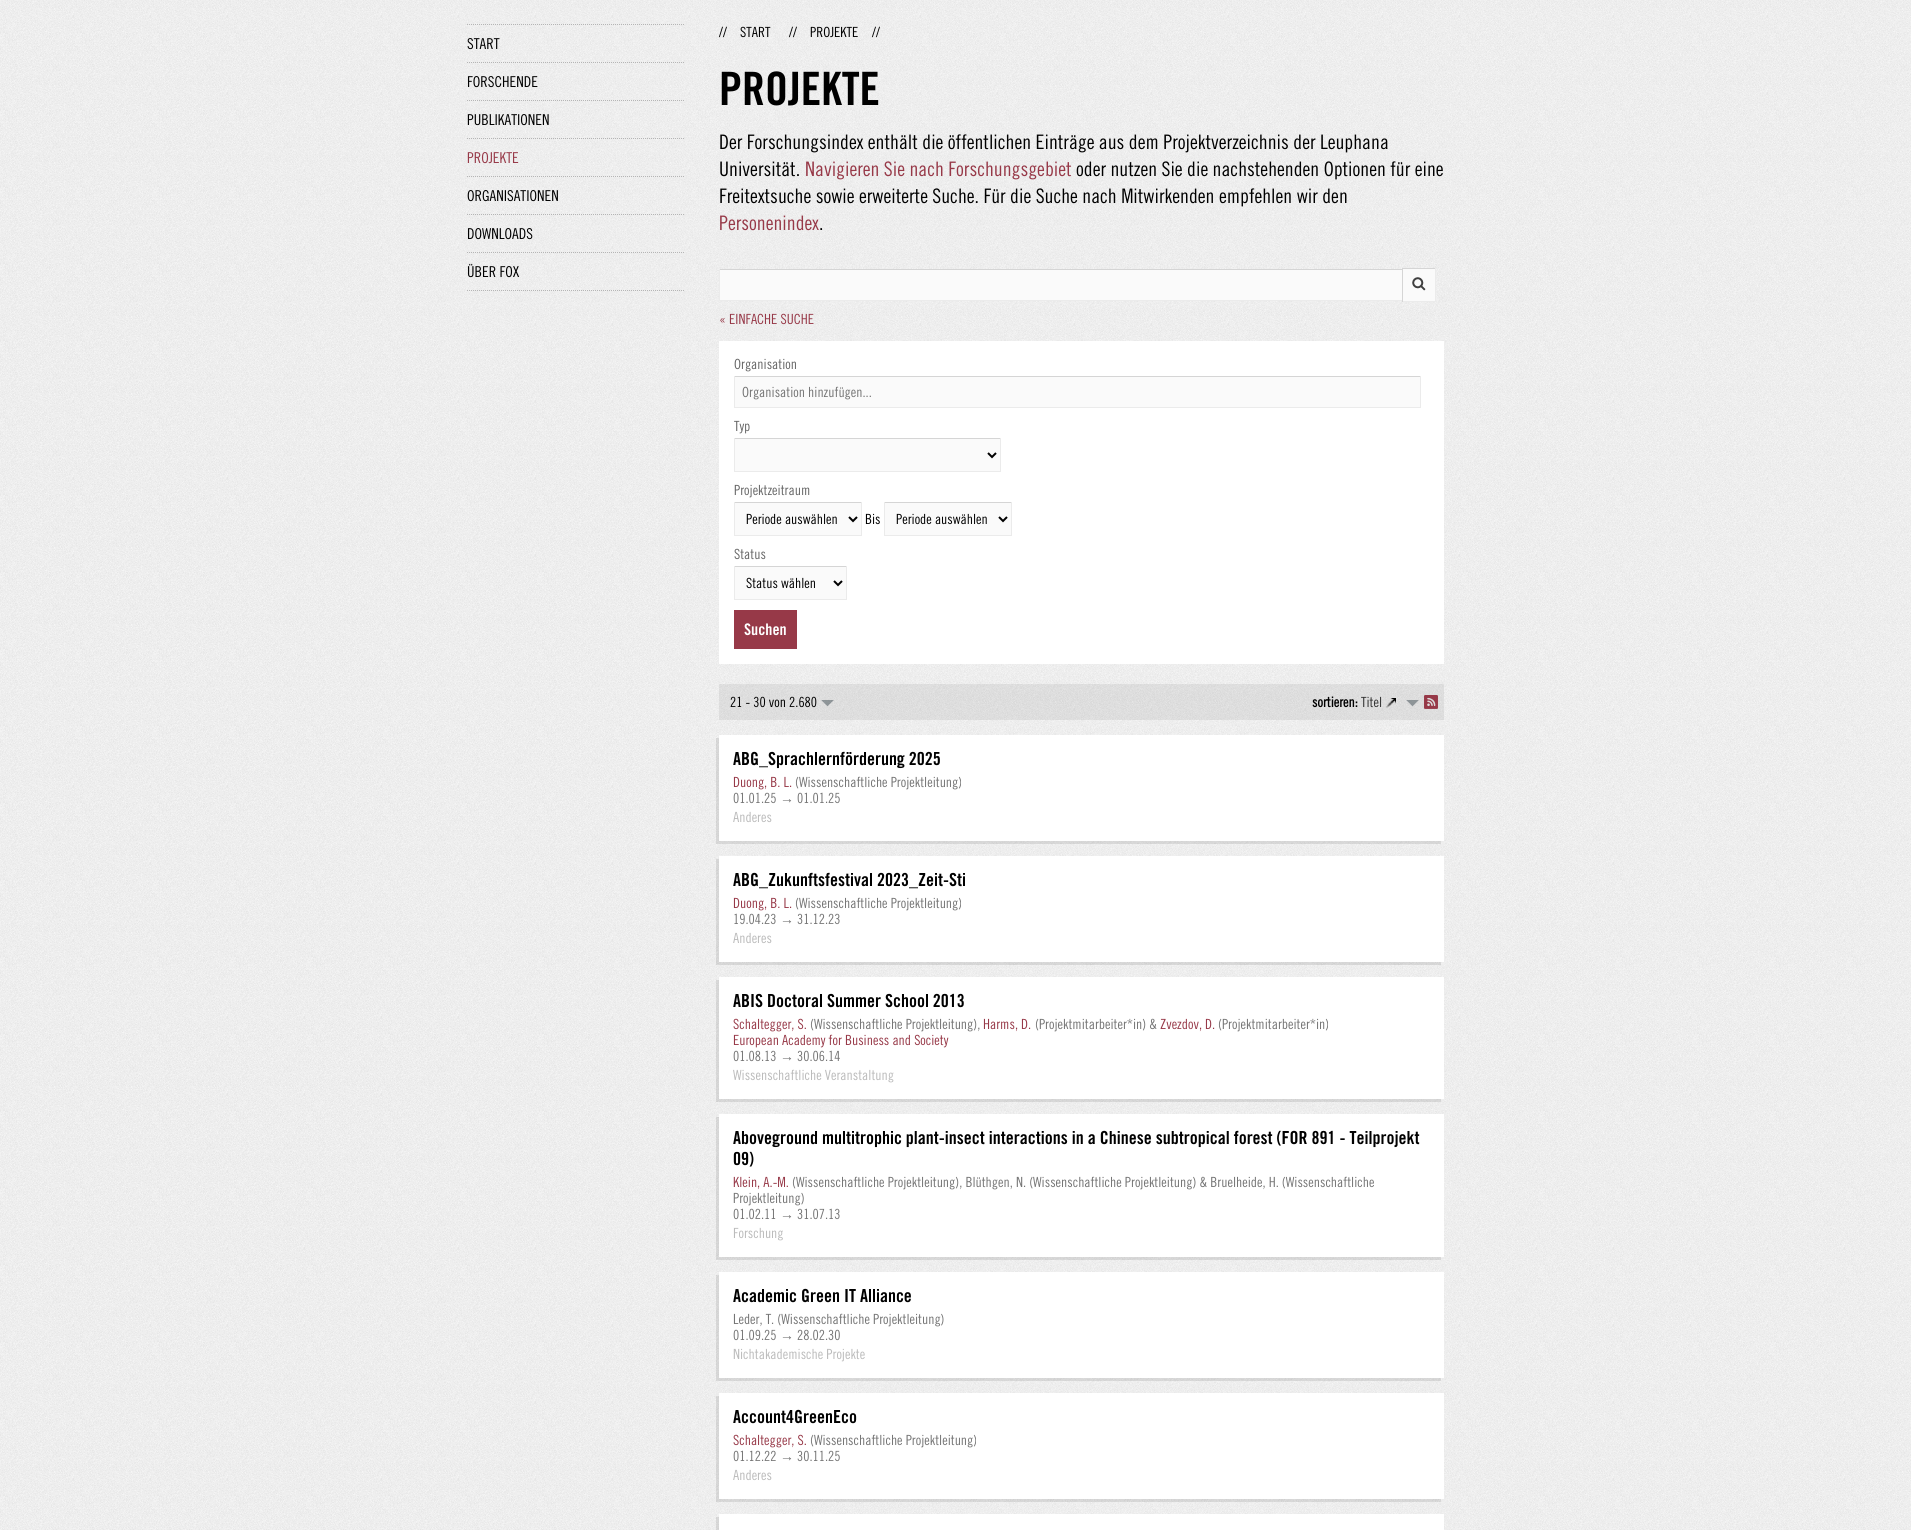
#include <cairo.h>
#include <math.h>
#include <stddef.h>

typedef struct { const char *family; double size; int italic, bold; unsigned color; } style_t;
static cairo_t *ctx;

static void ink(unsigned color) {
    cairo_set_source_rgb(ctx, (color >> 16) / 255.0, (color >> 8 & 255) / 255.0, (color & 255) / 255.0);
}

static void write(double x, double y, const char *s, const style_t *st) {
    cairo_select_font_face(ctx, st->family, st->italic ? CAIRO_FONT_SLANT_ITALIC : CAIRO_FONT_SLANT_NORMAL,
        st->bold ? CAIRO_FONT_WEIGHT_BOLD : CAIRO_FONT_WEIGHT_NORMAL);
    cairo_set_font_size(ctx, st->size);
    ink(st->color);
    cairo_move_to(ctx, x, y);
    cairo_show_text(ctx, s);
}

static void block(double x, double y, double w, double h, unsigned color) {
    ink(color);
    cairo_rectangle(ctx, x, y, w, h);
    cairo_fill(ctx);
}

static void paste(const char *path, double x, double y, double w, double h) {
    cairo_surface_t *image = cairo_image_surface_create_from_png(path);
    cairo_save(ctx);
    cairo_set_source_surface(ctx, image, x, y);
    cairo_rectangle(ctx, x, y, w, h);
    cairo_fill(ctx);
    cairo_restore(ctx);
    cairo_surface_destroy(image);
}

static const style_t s1 = {"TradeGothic", 15, 0, 0, 0x000000};
static const style_t s2 = {"TradeGothic", 15, 0, 0, 0x973948};
static const style_t s3 = {"TradeGothic", 14, 0, 0, 0x000000};
static const style_t s4 = {"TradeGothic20", 46, 0, 1, 0x000000};
static const style_t s5 = {"TradeGothic", 20, 0, 0, 0x000000};
static const style_t s6 = {"TradeGothic", 20, 0, 0, 0x973948};
static const style_t s7 = {"TradeGothic", 14, 0, 0, 0x973948};
static const style_t s8 = {"TradeGothic", 14, 0, 0, 0x666666};
static const style_t s9 = {"TradeGothic", 14, 0, 0, 0x757575};
static const style_t s10 = {"TradeGothic20", 16, 0, 1, 0xffffff};
static const style_t s11 = {"TradeGothic", 14, 0, 1, 0x000000};
static const style_t s12 = {"TradeGothic", 14, 0, 0, 0x333333};
static const style_t s13 = {"TradeGothic20", 18, 0, 1, 0x000000};
static const style_t s14 = {"Liberation Sans", 14, 0, 0, 0x757575};
static const style_t s15 = {"TradeGothic", 14, 0, 0, 0xbbbbbb};

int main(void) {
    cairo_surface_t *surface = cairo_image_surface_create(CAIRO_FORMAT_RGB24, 1911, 1530);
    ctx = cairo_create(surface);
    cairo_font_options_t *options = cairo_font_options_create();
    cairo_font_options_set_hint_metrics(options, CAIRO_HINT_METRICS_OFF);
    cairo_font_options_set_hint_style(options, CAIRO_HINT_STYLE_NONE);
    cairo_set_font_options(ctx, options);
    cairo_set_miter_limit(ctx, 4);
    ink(0xffffff);
    cairo_paint(ctx);
    paste("pic1.png", 0, 0, 1911, 1530);
    cairo_new_path(ctx);
    cairo_move_to(ctx, 467, 290.5);
    cairo_line_to(ctx, 684, 290.5);
    ink(0xb5b5b5);
    cairo_set_line_width(ctx, 1);
    cairo_set_dash(ctx, (double[]){1, 1}, 2, 0);
    cairo_stroke(ctx);
    cairo_new_path(ctx);
    cairo_move_to(ctx, 467, 24.5);
    cairo_line_to(ctx, 684, 24.5);
    cairo_stroke(ctx);
    write(467, 49, "START", &s1);
    cairo_new_path(ctx);
    cairo_move_to(ctx, 467, 62.5);
    cairo_line_to(ctx, 684, 62.5);
    ink(0xb5b5b5);
    cairo_stroke(ctx);
    write(467, 87, "FORSCHENDE", &s1);
    cairo_new_path(ctx);
    cairo_move_to(ctx, 467, 100.5);
    cairo_line_to(ctx, 684, 100.5);
    ink(0xb5b5b5);
    cairo_stroke(ctx);
    write(467, 125, "PUBLIKATIONEN", &s1);
    cairo_new_path(ctx);
    cairo_move_to(ctx, 467, 138.5);
    cairo_line_to(ctx, 684, 138.5);
    ink(0xb5b5b5);
    cairo_stroke(ctx);
    write(467, 163, "PROJEKTE", &s2);
    cairo_new_path(ctx);
    cairo_move_to(ctx, 467, 176.5);
    cairo_line_to(ctx, 684, 176.5);
    ink(0xb5b5b5);
    cairo_stroke(ctx);
    write(467, 201, "ORGANISATIONEN", &s1);
    cairo_new_path(ctx);
    cairo_move_to(ctx, 467, 214.5);
    cairo_line_to(ctx, 684, 214.5);
    ink(0xb5b5b5);
    cairo_stroke(ctx);
    write(467, 239, "DOWNLOADS", &s1);
    cairo_new_path(ctx);
    cairo_move_to(ctx, 467, 252.5);
    cairo_line_to(ctx, 684, 252.5);
    ink(0xb5b5b5);
    cairo_stroke(ctx);
    write(467, 277, "ÜBER FOX", &s1);
    write(719, 37, "//", &s3);
    write(740, 37, "START", &s3);
    write(789, 37, "//", &s3);
    write(810, 37, "PROJEKTE", &s3);
    write(872, 37, "//", &s3);
    write(719, 105, "PROJEKTE", &s4);
    write(719, 149, "Der Forschungsindex enthält die öffentlichen Einträge aus dem Projektverzeichnis der Leuphana", &s5);
    write(719, 176, "Universität.", &s5);
    write(805, 176, "Navigieren Sie nach Forschungsgebiet", &s6);
    write(1076, 176, "oder nutzen Sie die nachstehenden Optionen für eine", &s5);
    write(719, 203, "Freitextsuche sowie erweiterte Suche. Für die Suche nach Mitwirkenden empfehlen wir den", &s5);
    write(719, 230, "Personenindex", &s6);
    write(819, 230, ".", &s5);
    block(720, 270, 682, 30, 0xfafafa);
    block(719, 269, 687, 1, 0xd5d5d5);
    block(719, 300, 687, 1, 0xebebeb);
    block(719, 269, 1, 32, 0xebebeb);
    block(1403, 269, 32, 32, 0xfafafa);
    block(1402, 268, 34, 1, 0xd5d5d5);
    block(1435, 268, 1, 34, 0xebebeb);
    block(1402, 301, 34, 1, 0xebebeb);
    block(1402, 268, 1, 34, 0xd5d5d5);
    paste("pic2.png", 1412, 277, 14, 14);
    write(719, 324, "« EINFACHE SUCHE", &s7);
    block(719, 341, 725, 323, 0xffffff);
    write(734, 369, "Organisation", &s8);
    block(735, 377, 685, 30, 0xfafafa);
    block(734, 376, 687, 1, 0xd5d5d5);
    block(1420, 376, 1, 32, 0xebebeb);
    block(734, 407, 687, 1, 0xebebeb);
    block(734, 376, 1, 32, 0xebebeb);
    write(742, 397, "Organisation hinzufügen...", &s9);
    write(734, 431, "Typ", &s8);
    block(735, 439, 265, 32, 0xfafafa);
    block(734, 438, 267, 1, 0xd5d5d5);
    block(1000, 438, 1, 34, 0xebebeb);
    block(734, 471, 267, 1, 0xebebeb);
    block(734, 438, 1, 34, 0xebebeb);
    cairo_new_path(ctx);
    cairo_move_to(ctx, 988, 453);
    cairo_line_to(ctx, 992, 457);
    cairo_line_to(ctx, 996, 453);
    ink(0x000000);
    cairo_set_line_width(ctx, 2);
    cairo_set_dash(ctx, NULL, 0, 0);
    cairo_stroke(ctx);
    write(734, 495, "Projektzeitraum", &s8);
    block(735, 503, 126, 32, 0xfafafa);
    block(734, 502, 128, 1, 0xd5d5d5);
    block(861, 502, 1, 34, 0xebebeb);
    block(734, 535, 128, 1, 0xebebeb);
    block(734, 502, 1, 34, 0xebebeb);
    cairo_new_path(ctx);
    cairo_move_to(ctx, 849, 517);
    cairo_line_to(ctx, 853, 521);
    cairo_line_to(ctx, 857, 517);
    ink(0x000000);
    cairo_stroke(ctx);
    write(746, 524, "Periode auswählen", &s3);
    write(865, 524, "Bis", &s3);
    block(885, 503, 126, 32, 0xfafafa);
    block(884, 502, 128, 1, 0xd5d5d5);
    block(1011, 502, 1, 34, 0xebebeb);
    block(884, 535, 128, 1, 0xebebeb);
    block(884, 502, 1, 34, 0xebebeb);
    cairo_new_path(ctx);
    cairo_move_to(ctx, 999, 517);
    cairo_line_to(ctx, 1003, 521);
    cairo_line_to(ctx, 1007, 517);
    ink(0x000000);
    cairo_stroke(ctx);
    write(896, 524, "Periode auswählen", &s3);
    write(734, 559, "Status", &s8);
    block(735, 567, 111, 32, 0xfafafa);
    block(734, 566, 113, 1, 0xd5d5d5);
    block(846, 566, 1, 34, 0xebebeb);
    block(734, 599, 113, 1, 0xebebeb);
    block(734, 566, 1, 34, 0xebebeb);
    cairo_new_path(ctx);
    cairo_move_to(ctx, 834, 581);
    cairo_line_to(ctx, 838, 585);
    cairo_line_to(ctx, 842, 581);
    ink(0x000000);
    cairo_stroke(ctx);
    write(746, 588, "Status wählen", &s3);
    block(734, 610, 63, 39, 0x973948);
    write(744, 635, "Suchen", &s10);
    cairo_set_source_rgba(ctx, 0, 0, 0, 0.07);
    cairo_rectangle(ctx, 719, 684, 725, 36);
    cairo_fill(ctx);
    paste("pic3.png", 821, 700, 13, 7);
    write(730, 707, "21 - 30 von 2.680", &s3);
    paste("pic4.png", 1406, 700, 13, 7);
    write(1312, 707, "sortieren:", &s11);
    write(1361, 707, "Titel", &s12);
    paste("pic5.png", 1386, 698, 10, 10);
    paste("pic6.png", 1424, 695, 14, 14);
    cairo_set_source_rgba(ctx, 0, 0, 0, 0.1);
    cairo_new_path(ctx);
    cairo_move_to(ctx, 716, 738);
    cairo_line_to(ctx, 716, 844);
    cairo_line_to(ctx, 1441, 844);
    cairo_line_to(ctx, 1441, 841);
    cairo_line_to(ctx, 719, 841);
    cairo_line_to(ctx, 719, 738);
    cairo_close_path(ctx);
    cairo_fill(ctx);
    block(719, 735, 725, 106, 0xffffff);
    write(733, 765, "ABG_Sprachlernförderung 2025", &s13);
    write(733, 787, "Duong, B. L.", &s7);
    write(795, 787, "(Wissenschaftliche Projektleitung)", &s9);
    write(733, 803, "01.01.25", &s9);
    write(780, 803, "→", &s14);
    write(797, 803, "01.01.25", &s9);
    write(733, 822, "Anderes", &s15);
    cairo_set_source_rgba(ctx, 0, 0, 0, 0.1);
    cairo_new_path(ctx);
    cairo_move_to(ctx, 716, 859);
    cairo_line_to(ctx, 716, 965);
    cairo_line_to(ctx, 1441, 965);
    cairo_line_to(ctx, 1441, 962);
    cairo_line_to(ctx, 719, 962);
    cairo_line_to(ctx, 719, 859);
    cairo_close_path(ctx);
    cairo_fill(ctx);
    block(719, 856, 725, 106, 0xffffff);
    write(733, 886, "ABG_Zukunftsfestival 2023_Zeit-Sti", &s13);
    write(733, 908, "Duong, B. L.", &s7);
    write(795, 908, "(Wissenschaftliche Projektleitung)", &s9);
    write(733, 924, "19.04.23", &s9);
    write(780, 924, "→", &s14);
    write(797, 924, "31.12.23", &s9);
    write(733, 943, "Anderes", &s15);
    cairo_set_source_rgba(ctx, 0, 0, 0, 0.1);
    cairo_new_path(ctx);
    cairo_move_to(ctx, 716, 980);
    cairo_line_to(ctx, 716, 1102);
    cairo_line_to(ctx, 1441, 1102);
    cairo_line_to(ctx, 1441, 1099);
    cairo_line_to(ctx, 719, 1099);
    cairo_line_to(ctx, 719, 980);
    cairo_close_path(ctx);
    cairo_fill(ctx);
    block(719, 977, 725, 122, 0xffffff);
    write(733, 1007, "ABIS Doctoral Summer School 2013", &s13);
    write(733, 1029, "Schaltegger, S.", &s7);
    write(810, 1029, "(Wissenschaftliche Projektleitung),", &s9);
    write(983, 1029, "Harms, D.", &s7);
    write(1035, 1029, "(Projektmitarbeiter*in) &", &s9);
    write(1160, 1029, "Zvezdov, D.", &s7);
    write(1218, 1029, "(Projektmitarbeiter*in)", &s9);
    write(733, 1045, "European Academy for Business and Society", &s7);
    write(733, 1061, "01.08.13", &s9);
    write(780, 1061, "→", &s14);
    write(797, 1061, "30.06.14", &s9);
    write(733, 1080, "Wissenschaftliche Veranstaltung", &s15);
    cairo_set_source_rgba(ctx, 0, 0, 0, 0.1);
    cairo_new_path(ctx);
    cairo_move_to(ctx, 716, 1117);
    cairo_line_to(ctx, 716, 1260);
    cairo_line_to(ctx, 1441, 1260);
    cairo_line_to(ctx, 1441, 1257);
    cairo_line_to(ctx, 719, 1257);
    cairo_line_to(ctx, 719, 1117);
    cairo_close_path(ctx);
    cairo_fill(ctx);
    block(719, 1114, 725, 143, 0xffffff);
    write(733, 1144, "Aboveground multitrophic plant-insect interactions in a Chinese subtropical forest (FOR 891 - Teilprojekt", &s13);
    write(733, 1165, "09)", &s13);
    write(733, 1187, "Klein, A.-M.", &s7);
    write(792, 1187, "(Wissenschaftliche Projektleitung), Blüthgen, N. (Wissenschaftliche Projektleitung) & Bruelheide, H. (Wissenschaftliche", &s9);
    write(733, 1203, "Projektleitung)", &s9);
    write(733, 1219, "01.02.11", &s9);
    write(780, 1219, "→", &s14);
    write(797, 1219, "31.07.13", &s9);
    write(733, 1238, "Forschung", &s15);
    cairo_set_source_rgba(ctx, 0, 0, 0, 0.1);
    cairo_new_path(ctx);
    cairo_move_to(ctx, 716, 1275);
    cairo_line_to(ctx, 716, 1381);
    cairo_line_to(ctx, 1441, 1381);
    cairo_line_to(ctx, 1441, 1378);
    cairo_line_to(ctx, 719, 1378);
    cairo_line_to(ctx, 719, 1275);
    cairo_close_path(ctx);
    cairo_fill(ctx);
    block(719, 1272, 725, 106, 0xffffff);
    write(733, 1302, "Academic Green IT Alliance", &s13);
    write(733, 1324, "Leder, T. (Wissenschaftliche Projektleitung)", &s9);
    write(733, 1340, "01.09.25", &s9);
    write(780, 1340, "→", &s14);
    write(797, 1340, "28.02.30", &s9);
    write(733, 1359, "Nichtakademische Projekte", &s15);
    cairo_set_source_rgba(ctx, 0, 0, 0, 0.1);
    cairo_new_path(ctx);
    cairo_move_to(ctx, 716, 1396);
    cairo_line_to(ctx, 716, 1502);
    cairo_line_to(ctx, 1441, 1502);
    cairo_line_to(ctx, 1441, 1499);
    cairo_line_to(ctx, 719, 1499);
    cairo_line_to(ctx, 719, 1396);
    cairo_close_path(ctx);
    cairo_fill(ctx);
    block(719, 1393, 725, 106, 0xffffff);
    write(733, 1423, "Account4GreenEco", &s13);
    write(733, 1445, "Schaltegger, S.", &s7);
    write(810, 1445, "(Wissenschaftliche Projektleitung)", &s9);
    write(733, 1461, "01.12.22", &s9);
    write(780, 1461, "→", &s14);
    write(797, 1461, "30.11.25", &s9);
    write(733, 1480, "Anderes", &s15);
    cairo_set_source_rgba(ctx, 0, 0, 0, 0.1);
    cairo_new_path(ctx);
    cairo_move_to(ctx, 716, 1517);
    cairo_line_to(ctx, 716, 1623);
    cairo_line_to(ctx, 1441, 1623);
    cairo_line_to(ctx, 1441, 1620);
    cairo_line_to(ctx, 719, 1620);
    cairo_line_to(ctx, 719, 1517);
    cairo_close_path(ctx);
    cairo_fill(ctx);
    block(719, 1514, 725, 16, 0xffffff);
    cairo_surface_write_to_png(surface, "screenshot.png");
    cairo_font_options_destroy(options);
    cairo_destroy(ctx);
    cairo_surface_destroy(surface);
    return 0;
}
